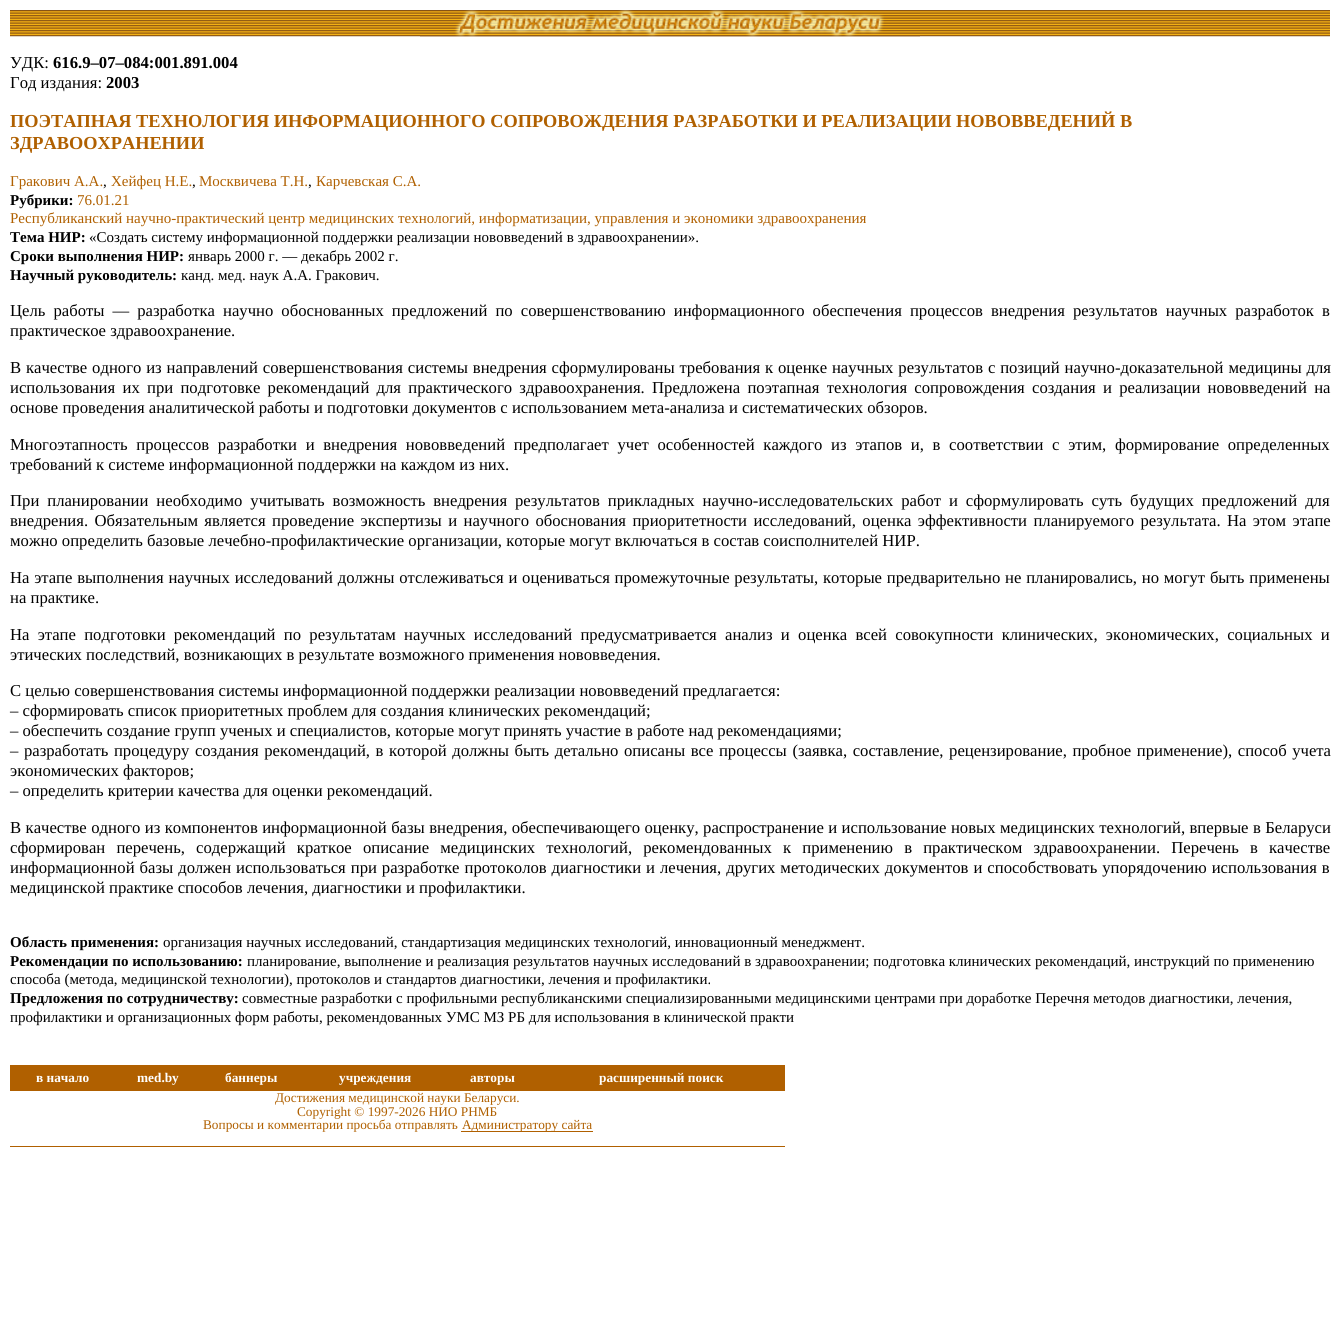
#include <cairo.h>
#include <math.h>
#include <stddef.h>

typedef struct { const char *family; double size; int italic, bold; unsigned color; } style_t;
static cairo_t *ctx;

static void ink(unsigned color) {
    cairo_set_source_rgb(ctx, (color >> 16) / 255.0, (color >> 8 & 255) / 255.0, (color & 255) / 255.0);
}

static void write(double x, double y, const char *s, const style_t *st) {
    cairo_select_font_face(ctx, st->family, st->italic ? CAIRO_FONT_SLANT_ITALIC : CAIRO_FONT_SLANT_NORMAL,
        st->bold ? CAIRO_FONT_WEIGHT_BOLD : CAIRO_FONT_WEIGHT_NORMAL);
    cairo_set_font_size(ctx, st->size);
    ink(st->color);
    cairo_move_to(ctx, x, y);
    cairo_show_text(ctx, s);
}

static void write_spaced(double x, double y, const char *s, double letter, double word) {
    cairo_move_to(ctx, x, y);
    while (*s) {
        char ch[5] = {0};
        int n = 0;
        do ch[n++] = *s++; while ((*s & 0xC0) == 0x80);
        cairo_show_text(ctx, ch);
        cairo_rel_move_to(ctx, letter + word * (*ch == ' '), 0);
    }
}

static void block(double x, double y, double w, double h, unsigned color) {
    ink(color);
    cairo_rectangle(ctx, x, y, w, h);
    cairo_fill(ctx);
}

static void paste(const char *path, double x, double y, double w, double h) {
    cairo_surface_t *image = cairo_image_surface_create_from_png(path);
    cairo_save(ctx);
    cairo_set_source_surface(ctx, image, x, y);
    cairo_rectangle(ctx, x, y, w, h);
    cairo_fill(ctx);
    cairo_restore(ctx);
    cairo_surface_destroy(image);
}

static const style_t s1 = {"Liberation Serif", 16.67, 0, 0, 0x000000};
static const style_t s2 = {"Liberation Serif", 16.67, 0, 1, 0x000000};
static const style_t s3 = {"Liberation Serif", 18.33, 0, 1, 0xb06000};
static const style_t s4 = {"Liberation Serif", 15, 0, 0, 0xb06000};
static const style_t s5 = {"Liberation Serif", 15, 0, 0, 0x000000};
static const style_t s6 = {"Liberation Serif", 15, 0, 1, 0x000000};
static const style_t s7 = {"Liberation Serif", 13.3, 0, 1, 0xffffff};
static const style_t s8 = {"Liberation Serif", 13.3, 0, 0, 0xb06000};

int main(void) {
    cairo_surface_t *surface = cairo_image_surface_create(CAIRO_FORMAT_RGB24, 1339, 1320);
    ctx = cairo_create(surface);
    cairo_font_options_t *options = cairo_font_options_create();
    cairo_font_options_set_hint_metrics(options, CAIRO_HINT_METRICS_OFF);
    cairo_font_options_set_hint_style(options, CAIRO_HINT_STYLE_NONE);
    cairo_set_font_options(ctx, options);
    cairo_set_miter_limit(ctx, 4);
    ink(0xffffff);
    cairo_paint(ctx);
    paste("pic1.png", 10, 10, 1320, 27);
    paste("pic2.png", 420, 10, 500, 27);
    write(10, 68, "УДК:", &s1);
    write(53, 68, "616.9–07–084:001.891.004", &s2);
    write(10, 88, "Год издания:", &s1);
    write(106, 88, "2003", &s2);
    write(10, 127, "ПОЭТАПНАЯ ТЕХНОЛОГИЯ ИНФОРМАЦИОННОГО СОПРОВОЖДЕНИЯ РАЗРАБОТКИ И РЕАЛИЗАЦИИ НОВОВВЕДЕНИЙ В", &s3);
    write(10, 149, "ЗДРАВООХРАНЕНИИ", &s3);
    write(10, 186, "Гракович А.А.", &s4);
    write(103, 186, ",", &s5);
    write(111, 186, "Хейфец Н.Е.", &s4);
    write(192, 186, ",", &s5);
    write(199, 186, "Москвичева Т.Н.", &s4);
    write(308, 186, ",", &s5);
    write(316, 186, "Карчевская С.А.", &s4);
    write(10, 205, "Рубрики:", &s6);
    write(77, 205, "76.01.21", &s4);
    write(10, 223, "Республиканский научно-практический центр медицинских технологий, информатизации, управления и экономики здравоохранения", &s4);
    write(10, 242, "Тема НИР:", &s6);
    write(89, 242, "«Создать систему информационной поддержки реализации нововведений в здравоохранении».", &s5);
    write(10, 261, "Сроки выполнения НИР:", &s6);
    write(188, 261, "январь 2000 г. — декабрь 2002 г.", &s5);
    write(10, 280, "Научный руководитель:", &s6);
    write(181, 280, "канд. мед. наук А.А. Гракович.", &s5);
    cairo_set_font_size(ctx, 16.67);
    write_spaced(10, 316, "Цель работы — разработка научно обоснованных предложений по совершенствованию информационного обеспечения процессов внедрения результатов научных разработок в", 0, 3.9);
    write(10, 336, "практическое здравоохранение.", &s1);
    write_spaced(10, 373, "В качестве одного из направлений совершенствования системы внедрения сформулированы требования к оценке научных результатов с позиций научно-доказательной медицины для", 0, 0.7);
    write_spaced(10, 393, "использования их при подготовке рекомендаций для практического здравоохранения. Предложена поэтапная технология сопровождения создания и реализации нововведений на", 0, 3.1);
    write(10, 413, "основе проведения аналитической работы и подготовки документов с использованием мета-анализа и систематических обзоров.", &s1);
    write_spaced(10, 450, "Многоэтапность процессов разработки и внедрения нововведений предполагает учет особенностей каждого из этапов и, в соответствии с этим, формирование определенных", 0, 4.5);
    write(10, 470, "требований к системе информационной поддержки на каждом из них.", &s1);
    write_spaced(10, 506, "При планировании необходимо учитывать возможность внедрения результатов прикладных научно-исследовательских работ и сформулировать суть будущих предложений для", 0, 3.75);
    write_spaced(10, 526, "внедрения. Обязательным является проведение экспертизы и научного обоснования приоритетности исследований, оценка эффективности планируемого результата. На этом этапе", 0, 2.25);
    write(10, 546, "можно определить базовые лечебно-профилактические организации, которые могут включаться в состав соисполнителей НИР.", &s1);
    write_spaced(10, 583, "На этапе выполнения научных исследований должны отслеживаться и оцениваться промежуточные результаты, которые предварительно не планировались, но могут быть применены", 0, 0.6);
    write(10, 603, "на практике.", &s1);
    write_spaced(10, 640, "На этапе подготовки рекомендаций по результатам научных исследований предусматривается анализ и оценка всей совокупности клинических, экономических, социальных и", 0, 4.1);
    write(10, 660, "этических последствий, возникающих в результате возможного применения нововведения.", &s1);
    write(10, 696, "С целью совершенствования системы информационной поддержки реализации нововведений предлагается:", &s1);
    write(10, 716, "– сформировать список приоритетных проблем для создания клинических рекомендаций;", &s1);
    write(10, 736, "– обеспечить создание групп ученых и специалистов, которые могут принять участие в работе над рекомендациями;", &s1);
    write_spaced(10, 756, "– разработать процедуру создания рекомендаций, в которой должны быть детально описаны все процессы (заявка, составление, рецензирование, пробное применение), способ учета", 0, 1.4);
    write(10, 776, "экономических факторов;", &s1);
    write(10, 796, "– определить критерии качества для оценки рекомендаций.", &s1);
    write_spaced(10, 833, "В качестве одного из компонентов информационной базы внедрения, обеспечивающего оценку, распространение и использование новых медицинских технологий, впервые в Беларуси", 0, 0.25);
    write_spaced(10, 853, "сформирован перечень, содержащий краткое описание медицинских технологий, рекомендованных к применению в практическом здравоохранении. Перечень в качестве", 0, 7);
    write_spaced(10, 873, "информационной базы должен использоваться при разработке протоколов диагностики и лечения, других методических документов и способствовать упорядочению использования в", 0, 0.8);
    write(10, 893, "медицинской практике способов лечения, диагностики и профилактики.", &s1);
    write(10, 947, "Область применения:", &s6);
    write(163, 947, "организация научных исследований, стандартизация медицинских технологий, инновационный менеджмент.", &s5);
    write(10, 966, "Рекомендации по использованию:", &s6);
    write(247, 966, "планирование, выполнение и реализация результатов научных исследований в здравоохранении; подготовка клинических рекомендаций, инструкций по применению", &s5);
    write(10, 984, "способа (метода, медицинской технологии), протоколов и стандартов диагностики, лечения и профилактики.", &s5);
    write(10, 1003, "Предложения по сотрудничеству:", &s6);
    write(242, 1003, "совместные разработки с профильными республиканскими специализированными медицинскими центрами при доработке Перечня методов диагностики, лечения,", &s5);
    write(10, 1022, "профилактики и организационных форм работы, рекомендованных УМС МЗ РБ для использования в клинической практи", &s5);
    block(10, 1065, 775, 26, 0xb06000);
    write(36, 1082, "в начало", &s7);
    write(137, 1082, "med.by", &s7);
    write(225, 1082, "баннеры", &s7);
    write(339, 1082, "учреждения", &s7);
    write(470, 1082, "авторы", &s7);
    write(599, 1082, "расширенный поиск", &s7);
    write(275, 1102, "Достижения медицинской науки Беларуси.", &s8);
    write(297, 1116, "Copyright © 1997-2026 НИО РНМБ", &s8);
    write(203, 1129, "Вопросы и комментарии просьба отправлять", &s8);
    block(461, 1131, 132, 1, 0xb06000);
    write(462, 1129, "Администратору сайта", &s8);
    block(10, 1146, 775, 1, 0xb06000);
    cairo_surface_write_to_png(surface, "screenshot.png");
    cairo_font_options_destroy(options);
    cairo_destroy(ctx);
    cairo_surface_destroy(surface);
    return 0;
}
